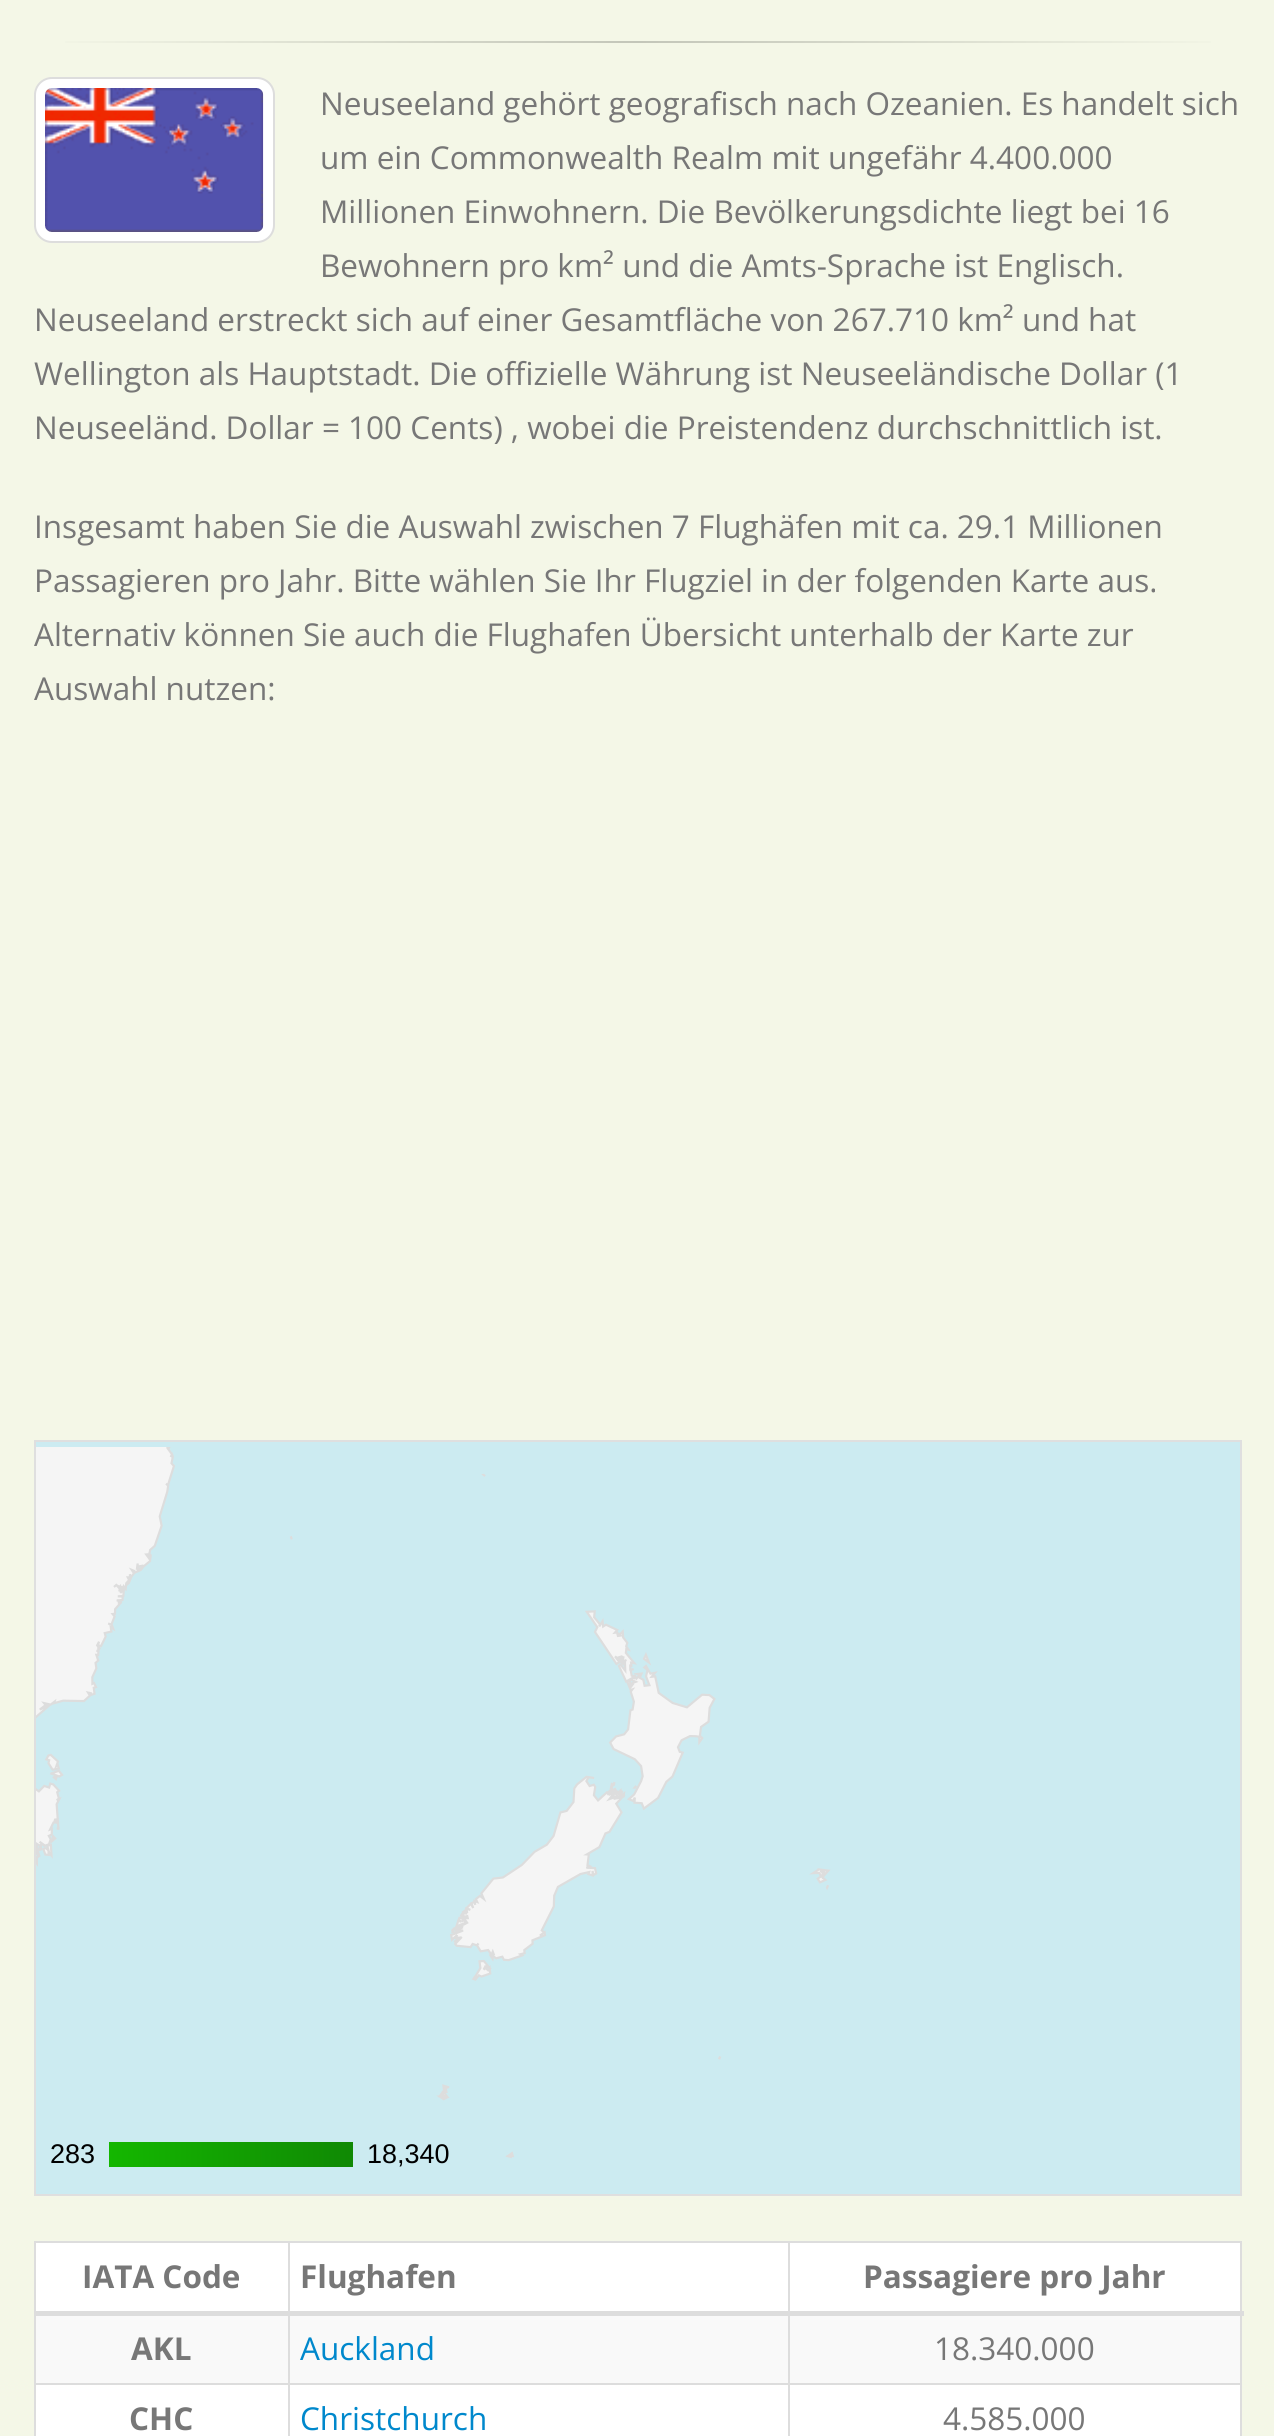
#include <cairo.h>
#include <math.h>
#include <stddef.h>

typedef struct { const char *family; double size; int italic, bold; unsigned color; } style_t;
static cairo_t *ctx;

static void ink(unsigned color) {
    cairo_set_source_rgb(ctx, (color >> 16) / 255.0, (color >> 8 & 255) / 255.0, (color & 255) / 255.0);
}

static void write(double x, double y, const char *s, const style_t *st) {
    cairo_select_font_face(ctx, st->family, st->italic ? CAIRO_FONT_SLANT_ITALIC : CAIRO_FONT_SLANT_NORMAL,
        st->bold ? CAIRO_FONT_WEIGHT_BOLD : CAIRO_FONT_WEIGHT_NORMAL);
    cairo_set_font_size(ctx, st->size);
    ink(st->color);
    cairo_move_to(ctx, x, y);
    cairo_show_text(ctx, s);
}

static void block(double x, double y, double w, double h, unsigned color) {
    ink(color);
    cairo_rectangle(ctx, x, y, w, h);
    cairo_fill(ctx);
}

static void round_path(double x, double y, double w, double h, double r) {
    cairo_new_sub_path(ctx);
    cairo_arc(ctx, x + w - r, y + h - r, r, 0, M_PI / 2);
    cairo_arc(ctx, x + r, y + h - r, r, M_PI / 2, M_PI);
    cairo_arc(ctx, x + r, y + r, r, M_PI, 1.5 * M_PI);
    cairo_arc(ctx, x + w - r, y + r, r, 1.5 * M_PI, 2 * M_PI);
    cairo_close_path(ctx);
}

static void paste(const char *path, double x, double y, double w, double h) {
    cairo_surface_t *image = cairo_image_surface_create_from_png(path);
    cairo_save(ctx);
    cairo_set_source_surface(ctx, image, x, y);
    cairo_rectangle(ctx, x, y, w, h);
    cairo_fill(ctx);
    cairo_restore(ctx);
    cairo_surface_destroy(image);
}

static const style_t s1 = {"Open Sans", 31.5, 0, 0, 0x777777};
static const style_t s2 = {"Liberation Sans", 27, 0, 0, 0x000000};
static const style_t s3 = {"Open Sans", 31.5, 0, 1, 0x777777};
static const style_t s4 = {"Open Sans", 31.5, 0, 0, 0x0088cc};

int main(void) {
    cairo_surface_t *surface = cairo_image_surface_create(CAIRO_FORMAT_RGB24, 1274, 2436);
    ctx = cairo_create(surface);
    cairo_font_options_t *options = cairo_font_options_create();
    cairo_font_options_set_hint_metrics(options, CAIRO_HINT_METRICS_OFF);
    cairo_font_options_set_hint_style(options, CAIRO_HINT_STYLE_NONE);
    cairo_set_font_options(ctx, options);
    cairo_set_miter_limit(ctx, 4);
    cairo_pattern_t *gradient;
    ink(0xf4f7e7);
    cairo_paint(ctx);
    gradient = cairo_pattern_create_linear(34, 42, 1242, 42);
    cairo_pattern_add_color_stop_rgba(gradient, 0, 0.957, 0.969, 0.906, 1);
    cairo_pattern_add_color_stop_rgba(gradient, 0.5, 0.765, 0.776, 0.725, 1);
    cairo_pattern_add_color_stop_rgba(gradient, 1, 0.957, 0.969, 0.906, 1);
    cairo_set_source(ctx, gradient);
    cairo_pattern_destroy(gradient);
    cairo_rectangle(ctx, 65, 41, 1146, 2);
    cairo_fill(ctx);
    ink(0xffffff);
    round_path(35, 78, 239, 164, 17);
    cairo_fill_preserve(ctx);
    ink(0xdddddd);
    cairo_stroke(ctx);
    paste("pic1.png", 45, 88, 219, 144);
    write(320, 115, "Neuseeland gehört geografisch nach Ozeanien. Es handelt sich", &s1);
    write(320, 169, "um ein Commonwealth Realm mit ungefähr 4.400.000", &s1);
    write(320, 223, "Millionen Einwohnern. Die Bevölkerungsdichte liegt bei 16", &s1);
    write(320, 277, "Bewohnern pro km² und die Amts-Sprache ist Englisch.", &s1);
    write(34, 331, "Neuseeland erstreckt sich auf einer Gesamtfläche von 267.710 km² und hat", &s1);
    write(34, 385, "Wellington als Hauptstadt. Die offizielle Währung ist Neuseeländische Dollar (1", &s1);
    write(34, 439, "Neuseeländ. Dollar = 100 Cents) , wobei die Preistendenz durchschnittlich ist.", &s1);
    write(34, 538, "Insgesamt haben Sie die Auswahl zwischen 7 Flughäfen mit ca. 29.1 Millionen", &s1);
    write(34, 592, "Passagieren pro Jahr. Bitte wählen Sie Ihr Flugziel in der folgenden Karte aus.", &s1);
    write(34, 646, "Alternativ können Sie auch die Flughafen Übersicht unterhalb der Karte zur", &s1);
    write(34, 700, "Auswahl nutzen:", &s1);
    cairo_rectangle(ctx, 35, 1441, 1206, 754);
    ink(0xdfdfdf);
    cairo_stroke(ctx);
    paste("pic2.png", 36, 1442, 1204, 752);
    write(50, 2163, "283", &s2);
    write(367, 2163, "18,340", &s2);
    block(36, 2243, 1204, 193, 0xffffff);
    block(34, 2241, 1208, 2, 0xdddddd);
    block(1240, 2241, 2, 195, 0xdddddd);
    block(34, 2241, 2, 195, 0xdddddd);
    write(82, 2288, "IATA Code", &s3);
    write(300, 2288, "Flughafen", &s3);
    block(36, 2316, 1204, 67, 0xf9f9f9);
    block(788, 2383, 454, 2, 0xdddddd);
    block(788, 2383, 2, 53, 0xdddddd);
    block(288, 2383, 502, 2, 0xdddddd);
    block(288, 2383, 2, 53, 0xdddddd);
    block(34, 2383, 256, 2, 0xdddddd);
    block(288, 2241, 2, 144, 0xdddddd);
    block(788, 2241, 2, 144, 0xdddddd);
    block(34, 2311, 1210, 5, 0xdddddd);
    write(863, 2288, "Passagiere pro Jahr", &s3);
    write(131, 2360, "AKL", &s3);
    write(300, 2360, "Auckland", &s4);
    write(934, 2360, "18.340.000", &s1);
    write(129, 2430, "CHC", &s3);
    write(300, 2430, "Christchurch", &s4);
    write(943, 2430, "4.585.000", &s1);
    cairo_surface_write_to_png(surface, "screenshot.png");
    cairo_font_options_destroy(options);
    cairo_destroy(ctx);
    cairo_surface_destroy(surface);
    return 0;
}
